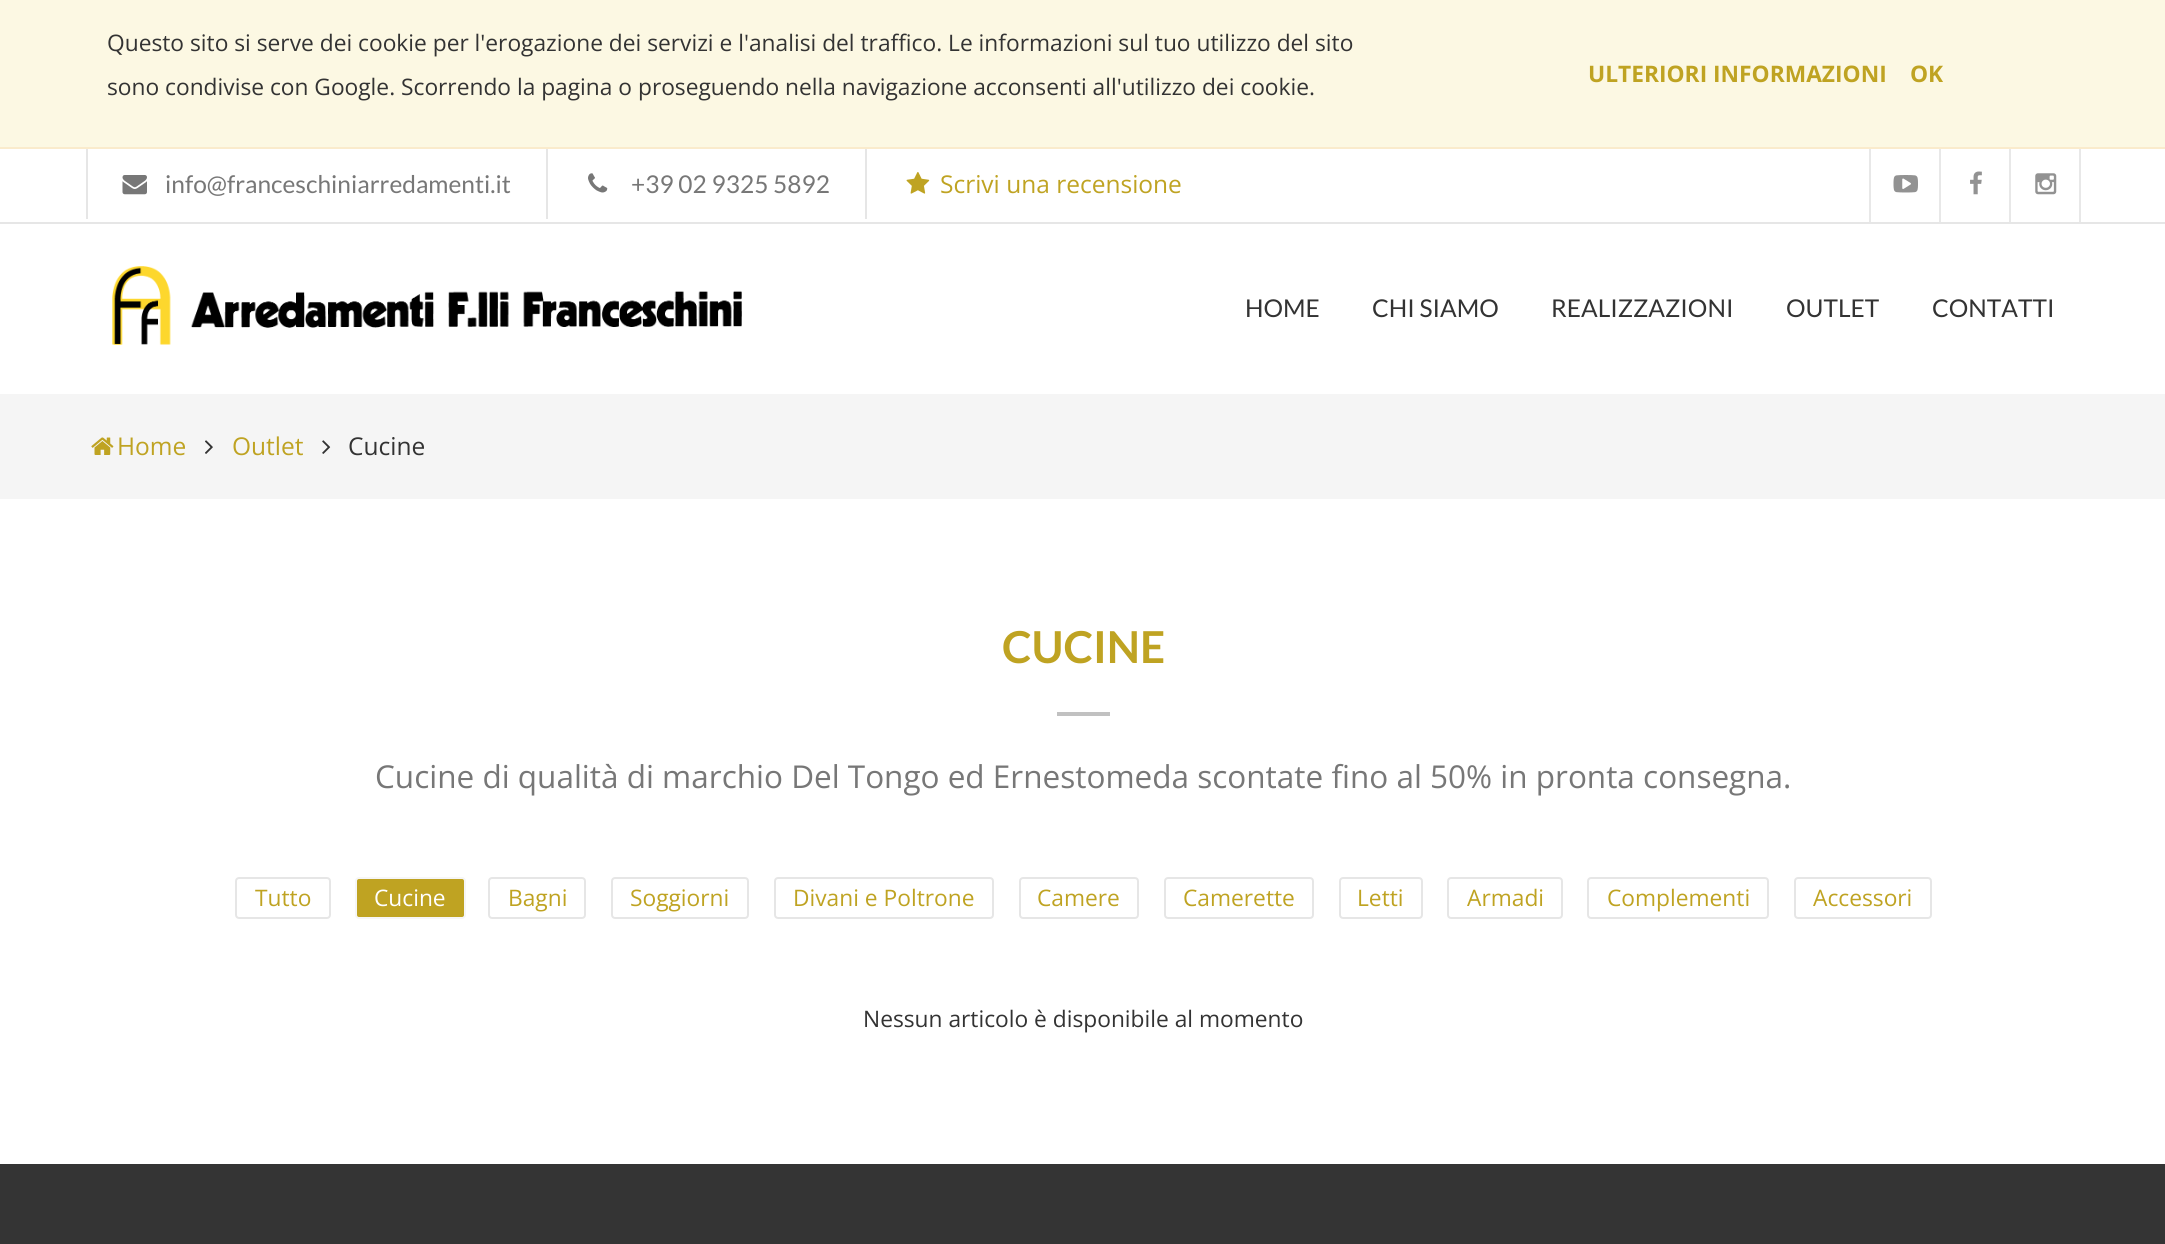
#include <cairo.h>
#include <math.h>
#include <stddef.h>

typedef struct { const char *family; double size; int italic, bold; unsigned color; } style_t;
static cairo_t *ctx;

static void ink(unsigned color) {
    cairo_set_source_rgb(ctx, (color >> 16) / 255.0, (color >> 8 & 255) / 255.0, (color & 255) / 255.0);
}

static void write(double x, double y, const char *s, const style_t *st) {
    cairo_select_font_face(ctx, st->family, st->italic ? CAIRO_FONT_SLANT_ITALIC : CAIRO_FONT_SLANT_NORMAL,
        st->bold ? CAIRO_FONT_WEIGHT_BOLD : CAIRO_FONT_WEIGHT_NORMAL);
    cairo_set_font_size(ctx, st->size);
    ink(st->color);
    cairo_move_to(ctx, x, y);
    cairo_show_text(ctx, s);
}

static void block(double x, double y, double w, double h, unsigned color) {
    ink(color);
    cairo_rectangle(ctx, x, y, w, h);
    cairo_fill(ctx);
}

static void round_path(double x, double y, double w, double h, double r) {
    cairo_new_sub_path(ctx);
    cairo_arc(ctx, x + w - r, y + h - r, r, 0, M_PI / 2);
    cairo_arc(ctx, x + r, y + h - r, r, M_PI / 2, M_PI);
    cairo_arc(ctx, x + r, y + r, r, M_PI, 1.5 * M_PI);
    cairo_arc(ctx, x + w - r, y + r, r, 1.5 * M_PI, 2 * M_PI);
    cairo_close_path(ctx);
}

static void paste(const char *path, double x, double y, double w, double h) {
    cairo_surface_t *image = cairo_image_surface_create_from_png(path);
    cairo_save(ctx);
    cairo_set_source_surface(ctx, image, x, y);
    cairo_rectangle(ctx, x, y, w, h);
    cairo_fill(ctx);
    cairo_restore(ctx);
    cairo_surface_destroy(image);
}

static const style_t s1 = {"Open Sans", 22.75, 0, 0, 0x333333};
static const style_t s2 = {"Open Sans", 22.75, 0, 1, 0xbfa322};
static const style_t s3 = {"Lato", 24.5, 0, 0, 0x777777};
static const style_t s4 = {"Open Sans", 24.5, 0, 0, 0xbfa322};
static const style_t s5 = {"Lato", 24.5, 0, 0, 0x333333};
static const style_t s6 = {"Open Sans", 24.5, 0, 0, 0x333333};
static const style_t s7 = {"Lato", 44, 0, 1, 0xbfa322};
static const style_t s8 = {"Open Sans", 31.5, 0, 0, 0x777777};
static const style_t s9 = {"Open Sans", 22.75, 0, 0, 0xbfa322};
static const style_t s10 = {"Open Sans", 22.75, 0, 0, 0xffffff};

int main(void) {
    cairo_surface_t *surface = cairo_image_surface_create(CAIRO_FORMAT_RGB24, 2165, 1244);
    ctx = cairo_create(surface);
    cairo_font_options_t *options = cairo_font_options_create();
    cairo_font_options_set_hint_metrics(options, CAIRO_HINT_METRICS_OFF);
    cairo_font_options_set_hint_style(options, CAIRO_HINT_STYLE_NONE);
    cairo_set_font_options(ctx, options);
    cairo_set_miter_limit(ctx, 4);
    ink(0xffffff);
    cairo_paint(ctx);
    block(0, 0, 2165, 147, 0xfcf8e3);
    block(0, 147, 2165, 2, 0xfaebcc);
    write(107, 51, "Questo sito si serve dei cookie per l'erogazione dei servizi e l'analisi del traffico. Le informazioni sul tuo utilizzo del sito", &s1);
    write(107, 95, "sono condivise con Google. Scorrendo la pagina o proseguendo nella navigazione acconsenti all'utilizzo dei cookie.", &s1);
    write(1588, 82, "ULTERIORI INFORMAZIONI", &s2);
    write(1910, 82, "OK", &s2);
    block(0, 222, 2165, 2, 0xe6e6e6);
    block(86, 149, 2, 70, 0xe6e6e6);
    paste("pic1.png", 122, 175, 25, 20);
    write(165, 193, "info@franceschiniarredamenti.it", &s3);
    block(546, 149, 2, 70, 0xe6e6e6);
    paste("pic2.png", 588, 173, 20, 20);
    write(631, 193, "+39 02 9325 5892", &s3);
    block(865, 149, 2, 70, 0xe6e6e6);
    paste("pic3.png", 906, 172, 24, 22);
    write(940, 193, "Scrivi una recensione", &s4);
    block(2079, 149, 2, 73, 0xe8e8e8);
    block(1869, 149, 2, 73, 0xe8e8e8);
    paste("pic4.png", 1893, 175, 25, 18);
    block(1939, 149, 2, 73, 0xe8e8e8);
    paste("pic5.png", 1970, 171, 12, 24);
    block(2009, 149, 2, 73, 0xe8e8e8);
    paste("pic6.png", 2035, 173, 22, 22);
    paste("pic7.png", 112, 266, 630, 79);
    write(1245, 317, "HOME", &s5);
    write(1372, 317, "CHI SIAMO", &s5);
    write(1551, 317, "REALIZZAZIONI", &s5);
    write(1786, 317, "OUTLET", &s5);
    write(1932, 317, "CONTATTI", &s5);
    block(0, 394, 2165, 105, 0xf5f5f5);
    paste("pic8.png", 91, 437, 23, 18);
    write(117, 455, "Home", &s4);
    paste("pic9.png", 205, 440, 8, 14);
    write(232, 455, "Outlet", &s4);
    paste("pic10.png", 322, 440, 9, 14);
    write(348, 455, "Cucine", &s6);
    write(1002, 663, "CUCINE", &s7);
    block(1057, 712, 53, 4, 0xc1c1c1);
    write(375, 788, "Cucine di qualità di marchio Del Tongo ed Ernestomeda scontate fino al 50% in pronta consegna.", &s8);
    round_path(236, 878, 94, 40, 3);
    ink(0xe6e6e6);
    cairo_stroke(ctx);
    write(255, 906, "Tutto", &s9);
    round_path(356, 878, 109, 40, 3);
    cairo_fill_preserve(ctx);
    ink(0xf6f6f6);
    cairo_stroke(ctx);
    write(374, 906, "Cucine", &s10);
    round_path(489, 878, 96, 40, 3);
    ink(0xe6e6e6);
    cairo_stroke(ctx);
    write(508, 906, "Bagni", &s9);
    round_path(612, 878, 136, 40, 3);
    ink(0xe6e6e6);
    cairo_stroke(ctx);
    write(630, 906, "Soggiorni", &s9);
    round_path(775, 878, 218, 40, 3);
    ink(0xe6e6e6);
    cairo_stroke(ctx);
    write(793, 906, "Divani e Poltrone", &s9);
    round_path(1020, 878, 118, 40, 3);
    ink(0xe6e6e6);
    cairo_stroke(ctx);
    write(1037, 906, "Camere", &s9);
    round_path(1165, 878, 148, 40, 3);
    ink(0xe6e6e6);
    cairo_stroke(ctx);
    write(1183, 906, "Camerette", &s9);
    round_path(1340, 878, 82, 40, 3);
    ink(0xe6e6e6);
    cairo_stroke(ctx);
    write(1357, 906, "Letti", &s9);
    round_path(1448, 878, 114, 40, 3);
    ink(0xe6e6e6);
    cairo_stroke(ctx);
    write(1467, 906, "Armadi", &s9);
    round_path(1588, 878, 180, 40, 3);
    ink(0xe6e6e6);
    cairo_stroke(ctx);
    write(1607, 906, "Complementi", &s9);
    round_path(1795, 878, 136, 40, 3);
    ink(0xe6e6e6);
    cairo_stroke(ctx);
    write(1813, 906, "Accessori", &s9);
    write(863, 1027, "Nessun articolo è disponibile al momento", &s1);
    block(0, 1164, 2165, 80, 0x343434);
    cairo_surface_write_to_png(surface, "screenshot.png");
    cairo_font_options_destroy(options);
    cairo_destroy(ctx);
    cairo_surface_destroy(surface);
    return 0;
}
